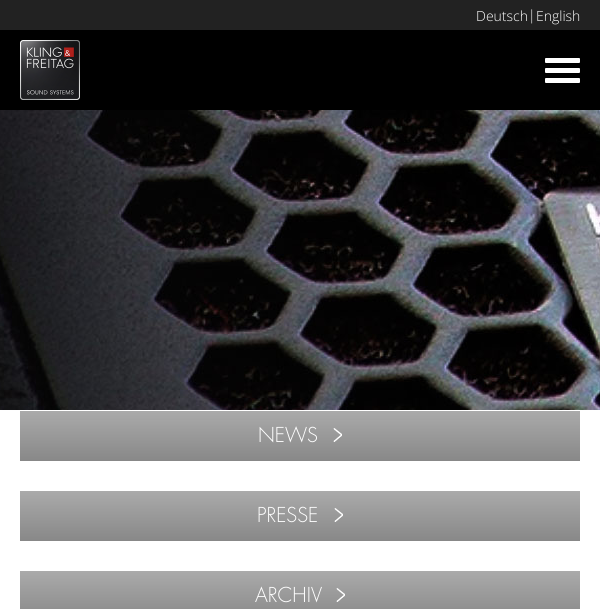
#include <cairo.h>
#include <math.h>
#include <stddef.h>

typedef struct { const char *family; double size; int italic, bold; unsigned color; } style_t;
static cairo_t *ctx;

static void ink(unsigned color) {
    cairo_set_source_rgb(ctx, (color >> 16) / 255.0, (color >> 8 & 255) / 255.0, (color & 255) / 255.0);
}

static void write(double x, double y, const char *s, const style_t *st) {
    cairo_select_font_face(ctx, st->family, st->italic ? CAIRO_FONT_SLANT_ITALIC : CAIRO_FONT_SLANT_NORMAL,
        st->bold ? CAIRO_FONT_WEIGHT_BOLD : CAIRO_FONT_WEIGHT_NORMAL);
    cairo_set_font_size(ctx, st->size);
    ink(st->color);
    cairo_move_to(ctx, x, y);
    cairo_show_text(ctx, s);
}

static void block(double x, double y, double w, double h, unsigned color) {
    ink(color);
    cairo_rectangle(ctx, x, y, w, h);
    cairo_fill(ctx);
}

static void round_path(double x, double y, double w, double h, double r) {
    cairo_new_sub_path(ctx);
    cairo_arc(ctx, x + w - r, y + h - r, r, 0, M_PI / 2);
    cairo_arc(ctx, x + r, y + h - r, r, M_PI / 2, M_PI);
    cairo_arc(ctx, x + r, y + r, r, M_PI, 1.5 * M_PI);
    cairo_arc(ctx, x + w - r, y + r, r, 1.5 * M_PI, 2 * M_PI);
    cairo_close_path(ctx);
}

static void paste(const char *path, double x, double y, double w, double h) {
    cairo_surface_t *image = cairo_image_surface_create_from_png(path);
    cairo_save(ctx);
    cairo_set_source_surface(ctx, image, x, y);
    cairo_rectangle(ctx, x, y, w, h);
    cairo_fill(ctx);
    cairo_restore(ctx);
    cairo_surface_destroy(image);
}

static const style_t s1 = {"Open Sans Light", 14, 0, 0, 0xffffff};
static const style_t s2 = {"Futura", 20, 0, 0, 0xffffff};

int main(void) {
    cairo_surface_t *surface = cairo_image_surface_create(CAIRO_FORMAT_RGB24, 600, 609);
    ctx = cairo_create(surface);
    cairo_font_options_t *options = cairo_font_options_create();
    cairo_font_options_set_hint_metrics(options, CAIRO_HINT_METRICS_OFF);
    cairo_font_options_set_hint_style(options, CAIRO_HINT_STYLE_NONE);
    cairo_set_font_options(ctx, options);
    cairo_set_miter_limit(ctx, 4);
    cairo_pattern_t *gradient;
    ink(0xffffff);
    cairo_paint(ctx);
    block(0, 30, 600, 80, 0x000000);
    block(0, 0, 600, 30, 0x222222);
    write(476, 21, "Deutsch", &s1);
    write(528, 20, "|", &s1);
    write(536, 21, "English", &s1);
    paste("pic1.png", 20, 40, 60, 60);
    round_path(545, 68, 35, 5, 1);
    cairo_fill(ctx);
    round_path(545, 58, 35, 5, 1);
    cairo_fill(ctx);
    round_path(545, 78, 35, 5, 1);
    cairo_fill(ctx);
    paste("pic2.png", 0, 110, 600, 300);
    gradient = cairo_pattern_create_linear(300, 411, 300, 461);
    cairo_pattern_add_color_stop_rgba(gradient, 0, 0.667, 0.667, 0.667, 1);
    cairo_pattern_add_color_stop_rgba(gradient, 1, 0.533, 0.533, 0.533, 1);
    cairo_set_source(ctx, gradient);
    cairo_pattern_destroy(gradient);
    cairo_rectangle(ctx, 20, 411, 560, 50);
    cairo_fill(ctx);
    write(258, 442, "NEWS", &s2);
    paste("pic3.png", 333, 428, 9, 14);
    gradient = cairo_pattern_create_linear(300, 491, 300, 541);
    cairo_pattern_add_color_stop_rgba(gradient, 0, 0.667, 0.667, 0.667, 1);
    cairo_pattern_add_color_stop_rgba(gradient, 1, 0.533, 0.533, 0.533, 1);
    cairo_set_source(ctx, gradient);
    cairo_pattern_destroy(gradient);
    cairo_rectangle(ctx, 20, 491, 560, 50);
    cairo_fill(ctx);
    write(257, 522, "PRESSE", &s2);
    paste("pic3.png", 334, 508, 9, 14);
    gradient = cairo_pattern_create_linear(300, 571, 300, 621);
    cairo_pattern_add_color_stop_rgba(gradient, 0, 0.667, 0.667, 0.667, 1);
    cairo_pattern_add_color_stop_rgba(gradient, 1, 0.533, 0.533, 0.533, 1);
    cairo_set_source(ctx, gradient);
    cairo_pattern_destroy(gradient);
    cairo_rectangle(ctx, 20, 571, 560, 38);
    cairo_fill(ctx);
    write(255, 602, "ARCHIV", &s2);
    paste("pic3.png", 336, 588, 9, 14);
    cairo_surface_write_to_png(surface, "screenshot.png");
    cairo_font_options_destroy(options);
    cairo_destroy(ctx);
    cairo_surface_destroy(surface);
    return 0;
}
